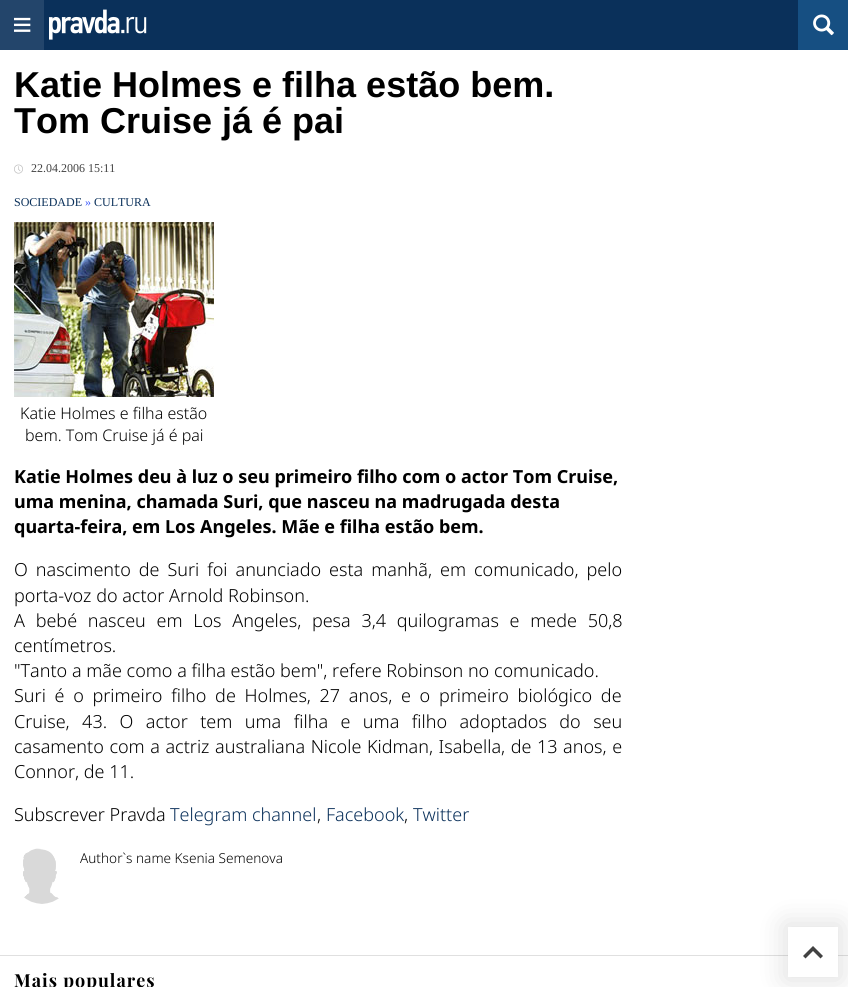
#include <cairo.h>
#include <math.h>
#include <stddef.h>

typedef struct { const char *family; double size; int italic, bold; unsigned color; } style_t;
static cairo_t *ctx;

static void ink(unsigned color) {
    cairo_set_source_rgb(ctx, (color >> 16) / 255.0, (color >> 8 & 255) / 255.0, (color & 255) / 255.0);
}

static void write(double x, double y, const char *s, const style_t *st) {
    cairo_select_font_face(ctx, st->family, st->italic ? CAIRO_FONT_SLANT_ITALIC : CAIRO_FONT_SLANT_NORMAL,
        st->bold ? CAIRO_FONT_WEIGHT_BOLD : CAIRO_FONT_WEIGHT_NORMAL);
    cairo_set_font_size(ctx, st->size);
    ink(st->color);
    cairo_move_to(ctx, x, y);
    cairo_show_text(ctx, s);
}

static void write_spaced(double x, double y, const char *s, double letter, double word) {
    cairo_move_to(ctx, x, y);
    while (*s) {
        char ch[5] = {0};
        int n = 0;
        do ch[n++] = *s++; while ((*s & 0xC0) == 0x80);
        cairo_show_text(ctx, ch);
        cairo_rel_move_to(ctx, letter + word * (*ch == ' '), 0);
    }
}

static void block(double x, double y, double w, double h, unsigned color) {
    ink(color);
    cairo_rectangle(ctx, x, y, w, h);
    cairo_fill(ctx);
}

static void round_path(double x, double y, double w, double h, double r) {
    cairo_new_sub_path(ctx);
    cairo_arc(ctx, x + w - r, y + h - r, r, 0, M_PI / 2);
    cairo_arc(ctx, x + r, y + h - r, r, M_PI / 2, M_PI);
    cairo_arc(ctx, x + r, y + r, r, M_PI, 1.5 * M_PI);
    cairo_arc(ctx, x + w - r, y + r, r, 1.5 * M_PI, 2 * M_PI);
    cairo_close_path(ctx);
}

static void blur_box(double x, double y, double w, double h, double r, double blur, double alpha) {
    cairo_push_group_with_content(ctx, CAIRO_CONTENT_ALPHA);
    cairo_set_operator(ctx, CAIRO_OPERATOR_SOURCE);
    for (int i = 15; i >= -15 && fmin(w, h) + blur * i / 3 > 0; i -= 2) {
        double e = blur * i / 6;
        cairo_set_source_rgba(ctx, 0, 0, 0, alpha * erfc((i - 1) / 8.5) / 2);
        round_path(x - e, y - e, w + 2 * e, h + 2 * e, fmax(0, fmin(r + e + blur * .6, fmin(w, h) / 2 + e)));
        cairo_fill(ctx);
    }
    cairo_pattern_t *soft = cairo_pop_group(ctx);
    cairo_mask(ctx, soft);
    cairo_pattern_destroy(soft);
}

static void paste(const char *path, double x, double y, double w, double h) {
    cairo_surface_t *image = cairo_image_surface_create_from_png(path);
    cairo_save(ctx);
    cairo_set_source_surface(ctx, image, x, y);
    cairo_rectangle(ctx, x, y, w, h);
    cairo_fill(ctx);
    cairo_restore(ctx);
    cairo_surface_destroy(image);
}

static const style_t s1 = {"Liberation Sans", 36, 0, 1, 0x000000};
static const style_t s2 = {"Liberation Serif", 12, 0, 0, 0x424242};
static const style_t s3 = {"Liberation Serif", 12, 0, 0, 0x0a305a};
static const style_t s4 = {"Liberation Serif", 12, 0, 0, 0x3d5afe};
static const style_t s5 = {"Noto Sans Light", 16, 0, 0, 0x000000};
static const style_t s6 = {"Noto Sans", 18, 0, 1, 0x000000};
static const style_t s7 = {"Noto Sans Light", 18, 0, 0, 0x000000};
static const style_t s8 = {"Noto Sans Light", 18, 0, 0, 0x0a305a};
static const style_t s9 = {"Noto Sans Light", 13.6, 0, 0, 0x000000};

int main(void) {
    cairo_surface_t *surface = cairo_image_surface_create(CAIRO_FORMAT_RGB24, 848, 987);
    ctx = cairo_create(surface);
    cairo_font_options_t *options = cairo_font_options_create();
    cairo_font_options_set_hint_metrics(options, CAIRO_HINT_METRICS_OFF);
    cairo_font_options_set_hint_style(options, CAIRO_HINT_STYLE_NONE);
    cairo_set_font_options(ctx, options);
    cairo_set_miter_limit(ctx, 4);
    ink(0xffffff);
    cairo_paint(ctx);
    block(44, 0, 754, 50, 0x0a305a);
    block(0, 0, 44, 50, 0x23456b);
    paste("pic1.png", 14, 17, 17, 15);
    paste("pic2.png", 49, 9, 98, 31);
    block(798, 0, 50, 50, 0x164f82);
    paste("pic3.png", 813, 14, 21, 22);
    block(0, 955, 848, 1, 0xe0e0e0);
    write(14, 97, "Katie Holmes e filha estão bem.", &s1);
    write(14, 133, "Tom Cruise já é pai", &s1);
    paste("pic4.png", 14, 164, 9, 10);
    write(31, 172, "22.04.2006 15:11", &s2);
    write(14, 206, "SOCIEDADE", &s3);
    write(85, 206, "»", &s4);
    write(94, 206, "CULTURA", &s3);
    paste("pic5.png", 14, 222, 200, 175);
    write(20, 419, "Katie Holmes e filha estão", &s5);
    write(25, 441, "bem. Tom Cruise já é pai", &s5);
    write(14, 483, "Katie Holmes deu à luz o seu primeiro filho com o actor Tom Cruise,", &s6);
    write(14, 508, "uma menina, chamada Suri, que nasceu na madrugada desta", &s6);
    write(14, 533, "quarta-feira, em Los Angeles. Mãe e filha estão bem.", &s6);
    cairo_select_font_face(ctx, "Noto Sans Light", CAIRO_FONT_SLANT_NORMAL, CAIRO_FONT_WEIGHT_NORMAL);
    write_spaced(14, 576, "O nascimento de Suri foi anunciado esta manhã, em comunicado, pelo", 0, 3.25);
    write(14, 602, "porta-voz do actor Arnold Robinson.", &s7);
    write_spaced(14, 627, "A bebé nasceu em Los Angeles, pesa 3,4 quilogramas e mede 50,8", 0, 6);
    write(14, 652, "centímetros.", &s7);
    write(14, 677, "\"Tanto a mãe como a filha estão bem\", refere Robinson no comunicado.", &s7);
    write_spaced(14, 702, "Suri é o primeiro filho de Holmes, 27 anos, e o primeiro biológico de", 0, 4);
    write_spaced(14, 728, "Cruise, 43. O actor tem uma filha e uma filho adoptados do seu", 0, 7.75);
    write_spaced(14, 753, "casamento com a actriz australiana Nicole Kidman, Isabella, de 13 anos, e", 0, 0.9);
    write(14, 778, "Connor, de 11.", &s7);
    write(14, 821, "Subscrever Pravda", &s7);
    write(170, 821, "Telegram channel", &s8);
    write(317, 821, ",", &s7);
    write(326, 821, "Facebook", &s8);
    write(404, 821, ",", &s7);
    write(413, 821, "Twitter", &s8);
    paste("pic6.png", 23, 848, 36, 56);
    write(80, 863, "Author`s name Ksenia Semenova", &s9);
    cairo_select_font_face(ctx, "Playfair Display", CAIRO_FONT_SLANT_NORMAL, CAIRO_FONT_WEIGHT_BOLD);
    cairo_set_font_size(ctx, 18);
    write_spaced(14, 987, "Mais populares", 1, 0);
    ink(0x000000);
    blur_box(785, 924, 56, 56, 0, 13.5, 0.13);
    block(788, 927, 50, 50, 0xffffff);
    ink(0x424242);
    cairo_new_path(ctx);
    cairo_move_to(ctx, 813, 946);
    cairo_line_to(ctx, 823, 956);
    cairo_line_to(ctx, 820.5, 958.5);
    cairo_line_to(ctx, 813, 951);
    cairo_line_to(ctx, 805.5, 958.5);
    cairo_line_to(ctx, 803, 956);
    cairo_close_path(ctx);
    cairo_fill(ctx);
    cairo_surface_write_to_png(surface, "screenshot.png");
    cairo_font_options_destroy(options);
    cairo_destroy(ctx);
    cairo_surface_destroy(surface);
    return 0;
}
